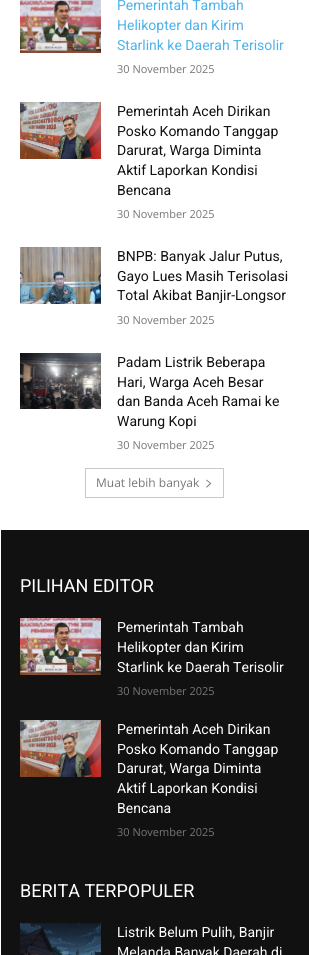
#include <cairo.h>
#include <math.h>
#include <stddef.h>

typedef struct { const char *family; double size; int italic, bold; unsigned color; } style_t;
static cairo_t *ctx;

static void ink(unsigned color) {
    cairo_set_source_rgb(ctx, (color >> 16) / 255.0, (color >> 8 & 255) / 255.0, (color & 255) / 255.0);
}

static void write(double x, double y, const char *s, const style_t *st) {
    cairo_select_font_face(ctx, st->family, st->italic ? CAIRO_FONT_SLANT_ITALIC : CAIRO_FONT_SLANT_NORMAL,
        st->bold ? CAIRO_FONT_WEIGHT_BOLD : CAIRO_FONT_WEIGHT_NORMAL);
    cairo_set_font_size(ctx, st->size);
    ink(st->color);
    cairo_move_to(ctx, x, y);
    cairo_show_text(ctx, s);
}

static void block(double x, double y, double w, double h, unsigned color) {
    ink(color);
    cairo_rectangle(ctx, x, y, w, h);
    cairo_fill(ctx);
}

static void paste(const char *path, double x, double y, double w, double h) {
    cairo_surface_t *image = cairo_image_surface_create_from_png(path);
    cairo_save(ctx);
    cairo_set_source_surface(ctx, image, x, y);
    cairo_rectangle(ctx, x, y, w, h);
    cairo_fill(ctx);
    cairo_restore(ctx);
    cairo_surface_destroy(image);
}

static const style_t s1 = {"Roboto", 14, 0, 0, 0x4db2ec};
static const style_t s2 = {"Open Sans", 11, 0, 0, 0x767676};
static const style_t s3 = {"Roboto", 14, 0, 0, 0x111111};
static const style_t s4 = {"Open Sans", 12, 0, 0, 0x767676};
static const style_t s5 = {"Roboto", 18, 0, 0, 0xffffff};
static const style_t s6 = {"Roboto", 14, 0, 0, 0xffffff};

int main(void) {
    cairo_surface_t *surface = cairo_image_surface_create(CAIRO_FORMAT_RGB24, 309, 955);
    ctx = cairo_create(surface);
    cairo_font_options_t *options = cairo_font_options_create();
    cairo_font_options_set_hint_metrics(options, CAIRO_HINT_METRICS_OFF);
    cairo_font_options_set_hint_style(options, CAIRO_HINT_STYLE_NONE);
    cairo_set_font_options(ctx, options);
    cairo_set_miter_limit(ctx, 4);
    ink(0xffffff);
    cairo_paint(ctx);
    paste("pic1.png", 20, 0, 81, 53);
    write(117, 10, "Pemerintah Tambah", &s1);
    write(117, 30, "Helikopter dan Kirim", &s1);
    write(117, 50, "Starlink ke Daerah Terisolir", &s1);
    write(117, 73, "30 November 2025", &s2);
    paste("pic2.png", 20, 102, 81, 57);
    write(117, 116, "Pemerintah Aceh Dirikan", &s3);
    write(117, 136, "Posko Komando Tanggap", &s3);
    write(117, 155, "Darurat, Warga Diminta", &s3);
    write(117, 175, "Aktif Laporkan Kondisi", &s3);
    write(117, 195, "Bencana", &s3);
    write(117, 218, "30 November 2025", &s2);
    paste("pic3.png", 20, 247, 81, 57);
    write(117, 261, "BNPB: Banyak Jalur Putus,", &s3);
    write(117, 281, "Gayo Lues Masih Terisolasi", &s3);
    write(117, 300, "Total Akibat Banjir-Longsor", &s3);
    write(117, 324, "30 November 2025", &s2);
    paste("pic4.png", 20, 353, 81, 56);
    write(117, 367, "Padam Listrik Beberapa", &s3);
    write(117, 387, "Hari, Warga Aceh Besar", &s3);
    write(117, 406, "dan Banda Aceh Ramai ke", &s3);
    write(117, 426, "Warung Kopi", &s3);
    write(117, 449, "30 November 2025", &s2);
    cairo_rectangle(ctx, 85.5, 468.5, 138, 29);
    ink(0xc9c9c9);
    cairo_set_line_width(ctx, 1);
    cairo_stroke(ctx);
    write(96, 487, "Muat lebih banyak", &s4);
    paste("pic5.png", 206, 479, 6, 9);
    block(1, 530, 308, 425, 0x111111);
    write(20, 592, "PILIHAN EDITOR", &s5);
    paste("pic6.png", 20, 618, 81, 57);
    write(117, 632, "Pemerintah Tambah", &s6);
    write(117, 652, "Helikopter dan Kirim", &s6);
    write(117, 672, "Starlink ke Daerah Terisolir", &s6);
    write(117, 695, "30 November 2025", &s2);
    paste("pic7.png", 20, 720, 81, 57);
    write(117, 734, "Pemerintah Aceh Dirikan", &s6);
    write(117, 754, "Posko Komando Tanggap", &s6);
    write(117, 773, "Darurat, Warga Diminta", &s6);
    write(117, 793, "Aktif Laporkan Kondisi", &s6);
    write(117, 813, "Bencana", &s6);
    write(117, 836, "30 November 2025", &s2);
    write(20, 897, "BERITA TERPOPULER", &s5);
    paste("pic8.png", 20, 923, 81, 32);
    write(117, 937, "Listrik Belum Pulih, Banjir", &s6);
    write(117, 957, "Melanda Banyak Daerah di", &s6);
    cairo_surface_write_to_png(surface, "screenshot.png");
    cairo_font_options_destroy(options);
    cairo_destroy(ctx);
    cairo_surface_destroy(surface);
    return 0;
}
